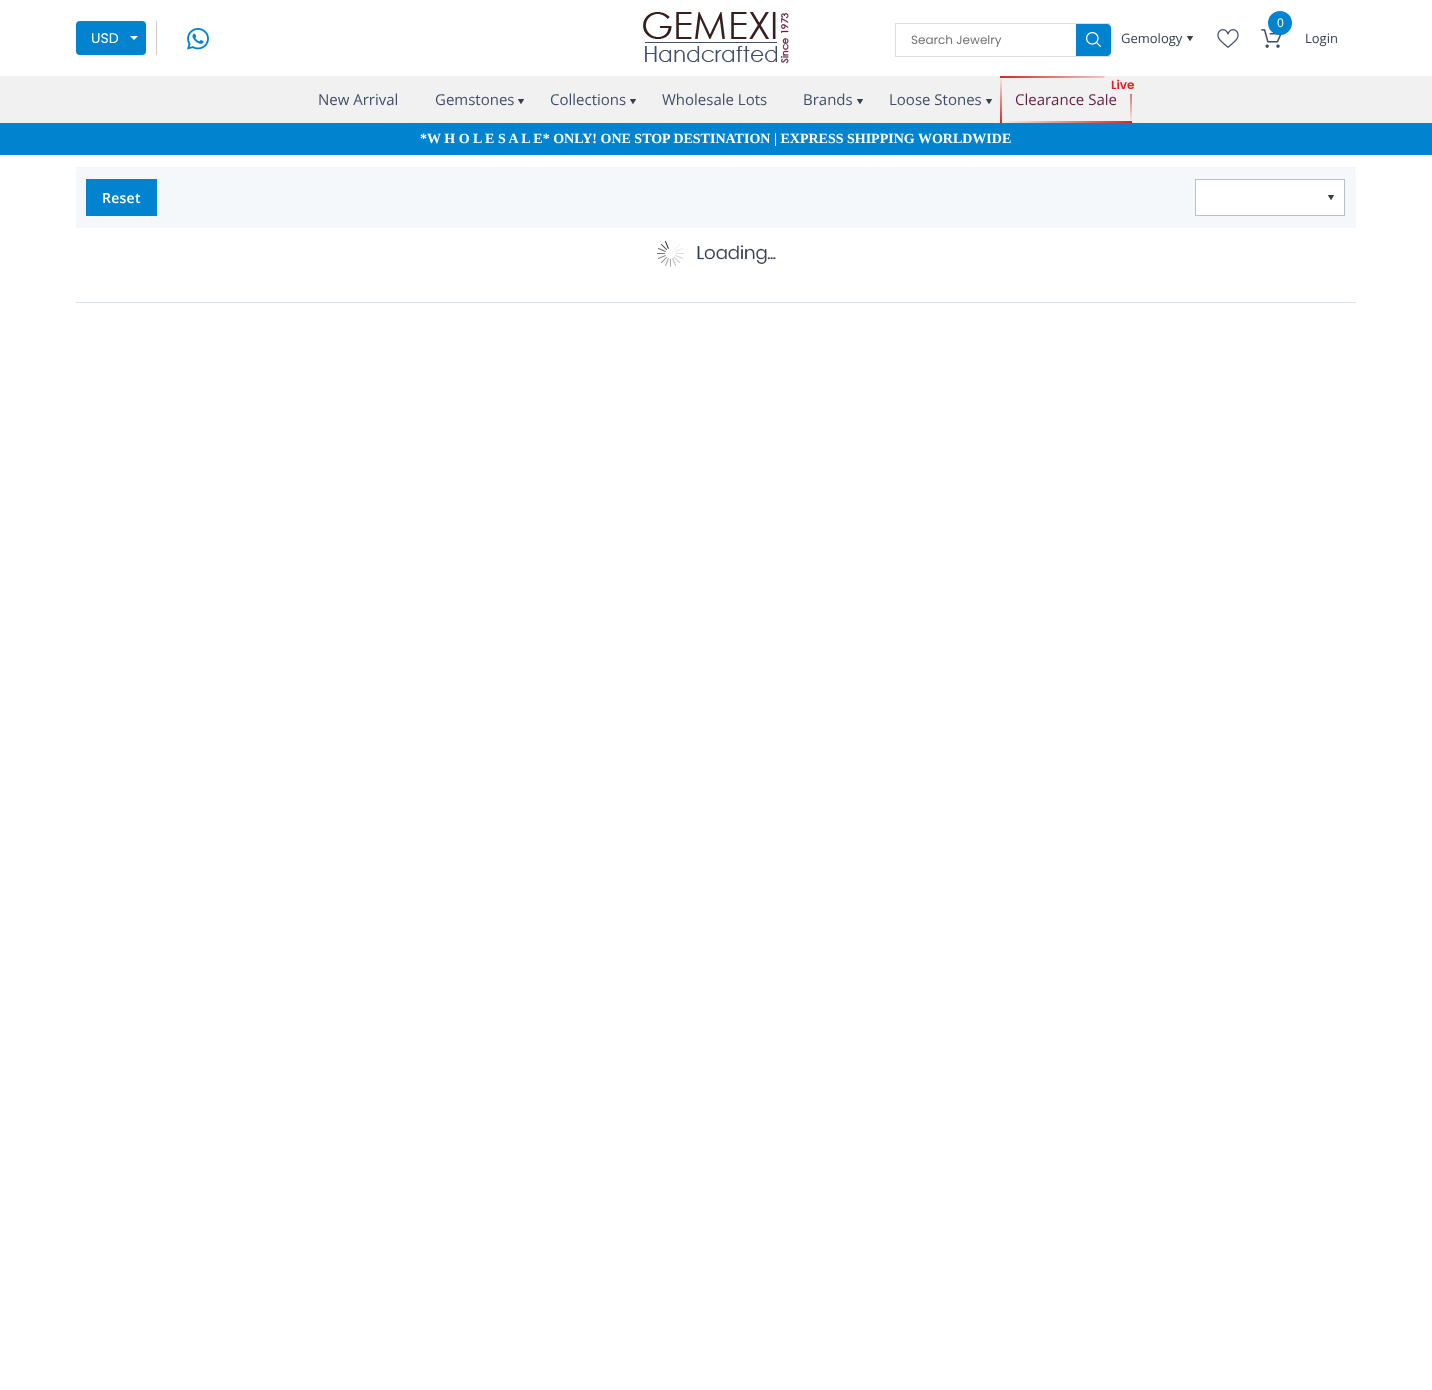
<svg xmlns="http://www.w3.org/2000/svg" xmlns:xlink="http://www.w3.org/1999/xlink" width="1432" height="1390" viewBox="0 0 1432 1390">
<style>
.cls-1{font:14px Poppins;fill:#ffffff}
.cls-2{font:12px Poppins;fill:#757575}
.cls-3{font:12px Open Sans;fill:#ffffff}
.cls-4{font:13px Open Sans;fill:#35404e}
.cls-5{font:15px Open Sans;fill:#404e68}
.cls-6{font:15px Open Sans;fill:#642346}
.cls-7{font:600 12px Poppins;fill:#ec1b22}
.cls-8{font:bold 14px Liberation Serif;fill:#ffffff}
.cls-9{font:600 14px Open Sans;letter-spacing:0.25px;fill:#ffffff}
</style>
<defs>
<linearGradient id="g1" gradientUnits="userSpaceOnUse" x1="1132" y1="77" x2="1000" y2="77"><stop offset="0" stop-color="#f1f1f1"/><stop offset="1" stop-color="#d92626"/></linearGradient>
<linearGradient id="g2" gradientUnits="userSpaceOnUse" x1="1131" y1="123" x2="1131" y2="76"><stop offset="0" stop-color="#f1f1f1"/><stop offset="1" stop-color="#d92626"/></linearGradient>
<linearGradient id="g3" gradientUnits="userSpaceOnUse" x1="1000" y1="122" x2="1132" y2="122"><stop offset="0" stop-color="#d92626" stop-opacity="0"/><stop offset="1" stop-color="#d92626"/></linearGradient>
<linearGradient id="g4" gradientUnits="userSpaceOnUse" x1="1001" y1="76" x2="1001" y2="123"><stop offset="0" stop-color="#d92626" stop-opacity="0"/><stop offset="1" stop-color="#d92626"/></linearGradient>
</defs>
<rect width="100%" height="100%" fill="#ffffff"/>
<rect fill="#cccccc" x="156" y="21" width="1" height="34"/>
<rect fill="#0183cf" x="76" y="21" width="70" height="34" rx="4"/>
<path fill="#ffffff" d="M130 36H138L134 40Z"/>
<image xlink:href="image0.png" x="187" y="28" width="22" height="22"/>
<image xlink:href="image1.png" x="643" y="12" width="146" height="52"/>
<rect fill="none" stroke="#dcdddc" x="895.5" y="23.5" width="214" height="33"/>
<path fill="#0183cf" d="M1076 24H1107C1109 24 1111 26 1111 28V52C1111 54 1109 56 1107 56H1076Z"/>
<image xlink:href="image2.png" x="1086" y="32" width="15" height="15"/>
<image xlink:href="image3.png" x="1261" y="29" width="21" height="19"/>
<circle fill="#0183cf" cx="1280" cy="23" r="12"/>
<image xlink:href="image4.png" x="1187" y="36" width="6" height="5"/>
<image xlink:href="image5.png" x="1217" y="29" width="22" height="19"/>
<rect fill="#f1f1f1" x="0" y="76" width="1432" height="47"/>
<image xlink:href="image6.png" x="518" y="99" width="6" height="5"/>
<image xlink:href="image6.png" x="630" y="99" width="6" height="5"/>
<image xlink:href="image6.png" x="857" y="99" width="6" height="5"/>
<image xlink:href="image6.png" x="986" y="99" width="6" height="5"/>
<rect fill="url(#g1)" x="1000" y="76" width="106" height="2"/>
<rect fill="url(#g2)" x="1130" y="94" width="2" height="29"/>
<rect fill="url(#g3)" x="1000" y="121" width="132" height="2"/>
<rect fill="url(#g4)" x="1000" y="76" width="2" height="47"/>
<rect fill="#0183cf" x="0" y="123" width="1432" height="32"/>
<rect fill="#dbe4e8" x="76" y="302" width="1280" height="1"/>
<rect fill="#f4f8fa" x="76" y="167" width="1280" height="61"/>
<rect fill="#0183cf" x="86" y="179" width="71" height="37"/>
<rect fill="#ffffff" x="1196" y="180" width="148" height="35"/>
<image xlink:href="image4.png" x="1328" y="195" width="6" height="5"/>
<rect fill="none" stroke="#b9c0ca" x="1195.5" y="179.5" width="149" height="36"/>
<image xlink:href="image7.png" x="657" y="241" width="119" height="26"/>
<text class="cls-1" x="91" y="43">USD</text>
<text class="cls-2" x="911" y="44">Search Jewelry</text>
<text class="cls-3" x="1277" y="27">0</text>
<text class="cls-4" x="1121" y="43">Gemology</text>
<text class="cls-4" x="1305" y="43">Login</text>
<text class="cls-5" x="318" y="105">New Arrival</text>
<text class="cls-5" x="435" y="105">Gemstones</text>
<text class="cls-5" x="550" y="105">Collections</text>
<text class="cls-5" x="662" y="105">Wholesale Lots</text>
<text class="cls-5" x="803" y="105">Brands</text>
<text class="cls-5" x="889" y="105">Loose Stones</text>
<text class="cls-6" x="1015" y="105">Clearance Sale</text>
<rect fill="#f1f1f1" x="1104" y="76" width="38" height="18" rx="2"/>
<text class="cls-7" x="1111" y="89">Live</text>
<text class="cls-8" x="420" y="143">*W H O L E S A L E* ONLY! ONE STOP DESTINATION | EXPRESS SHIPPING WORLDWIDE</text>
<text class="cls-9" x="102" y="203">Reset</text>
</svg>
